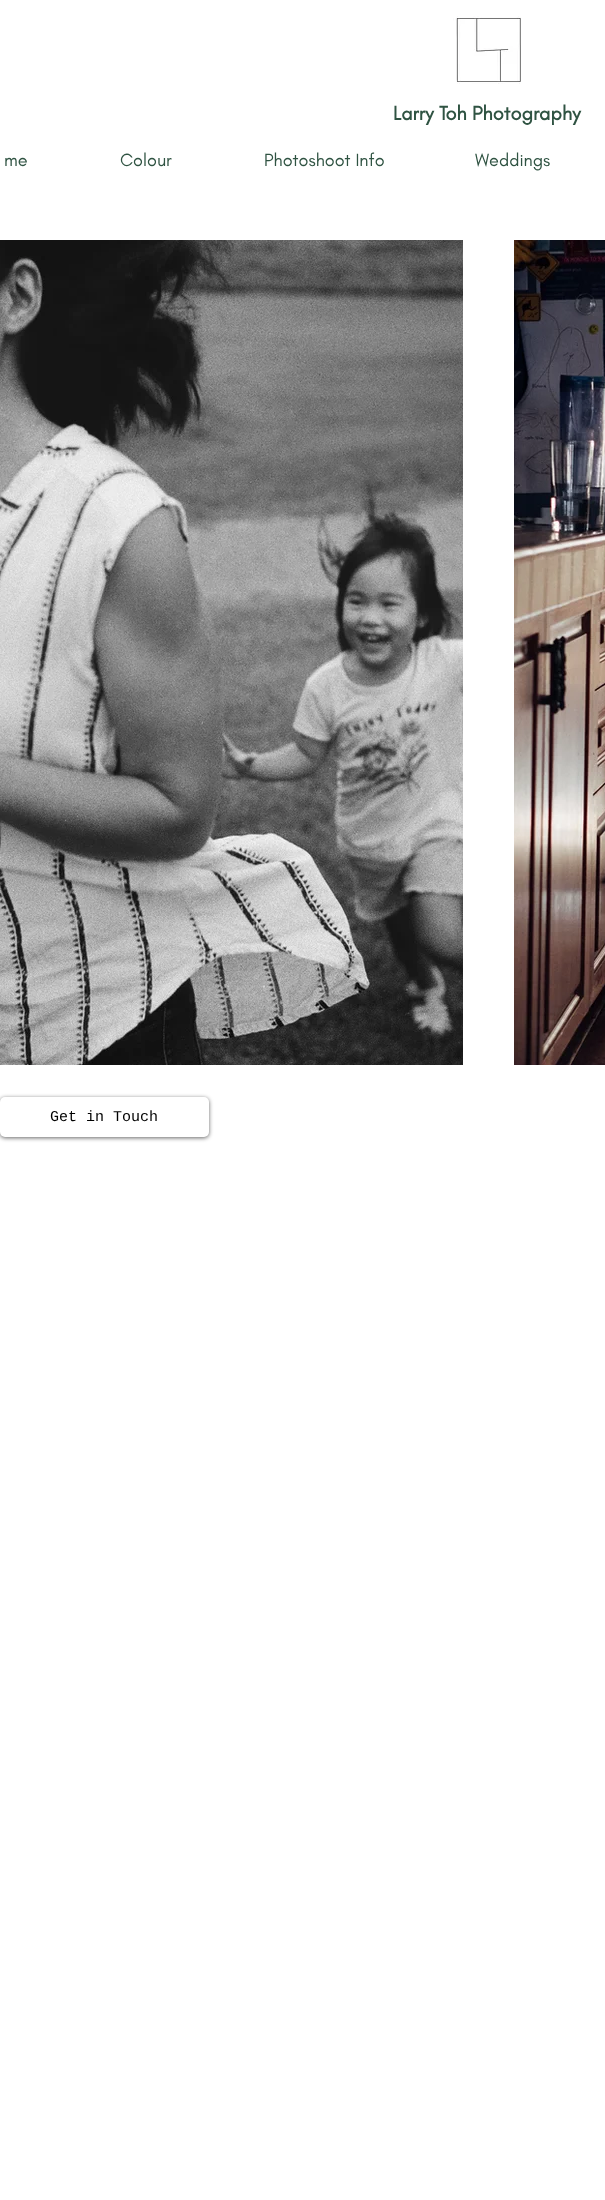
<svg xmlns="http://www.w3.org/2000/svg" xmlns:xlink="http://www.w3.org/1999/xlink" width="605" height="2200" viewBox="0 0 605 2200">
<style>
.cls-1{font:bold 20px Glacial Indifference;fill:#2f5342}
.cls-2{font:18px Glacial Indifference;fill:#2f5342}
.cls-3{font:15px Liberation Mono;fill:#000000}
</style>
<rect width="100%" height="100%" fill="#ffffff"/>
<image xlink:href="image0.png" x="453" y="16" width="68" height="68"/>
<image xlink:href="image1.png" x="0" y="240" width="463" height="825"/>
<image xlink:href="image2.png" x="514" y="240" width="91" height="825"/>
<rect fill="#000000" fill-opacity="0.6" filter="blur(2px)" x="0" y="1098" width="209" height="40" rx="5"/>
<rect fill="#ffffff" x="0" y="1097" width="209" height="40" rx="5"/>
<text class="cls-1" x="393" y="120">Larry Toh Photography</text>
<text class="cls-2" x="4" y="166">me</text>
<text class="cls-2" x="120" y="166">Colour</text>
<text class="cls-2" x="264" y="166">Photoshoot Info</text>
<text class="cls-2" x="475" y="166">Weddings</text>
<text class="cls-3" x="50" y="1121">Get in Touch</text>
</svg>
